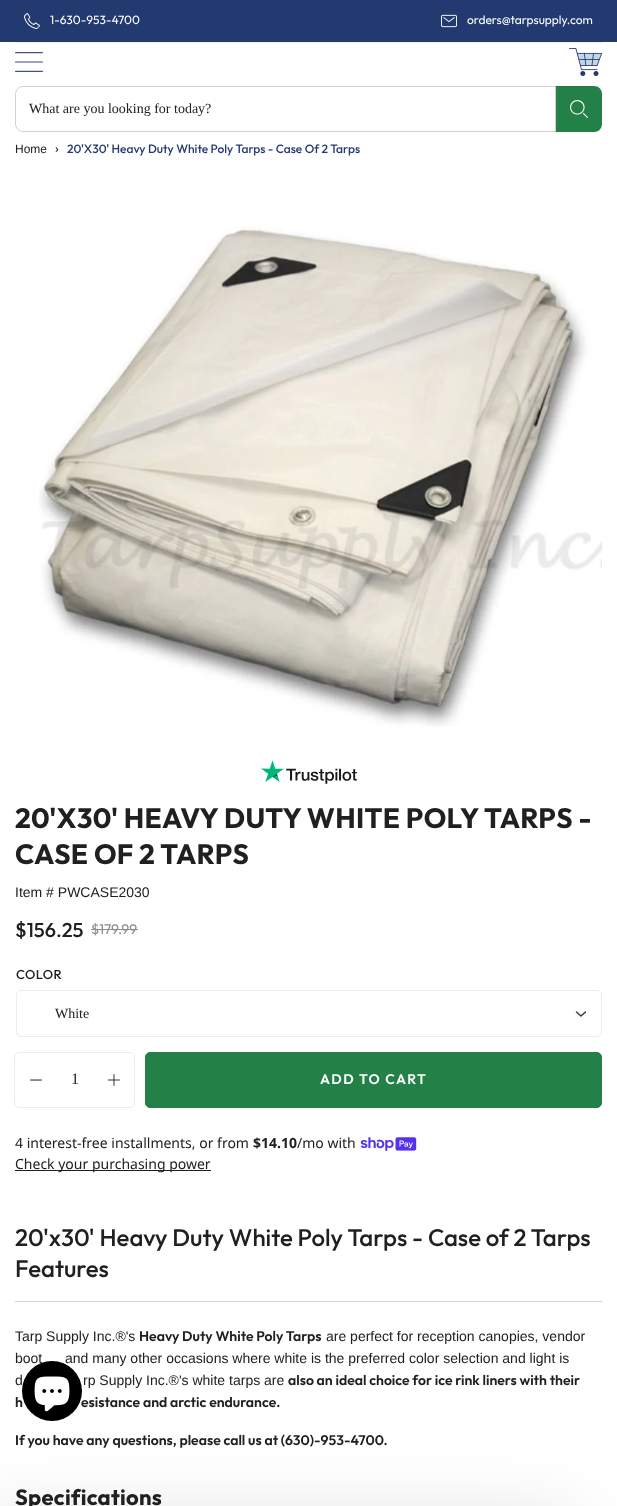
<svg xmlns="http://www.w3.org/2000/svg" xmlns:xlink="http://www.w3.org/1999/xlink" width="617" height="1506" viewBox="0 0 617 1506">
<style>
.cls-1{font:12px Outfit;fill:#ffffff}
.cls-2{font:14px Liberation Serif;fill:#202020}
.cls-3{font:12px Liberation Sans;fill:#202020}
.cls-4{font:14px Outfit;fill:#202020}
.cls-5{font:500 12px Outfit;fill:#233a70}
.cls-6{font:bold 28px Outfit;letter-spacing:0.3px;fill:#202020}
.cls-7{font:14px Liberation Sans;fill:#202020}
.cls-8{font:500 20px Outfit;fill:#202020}
.cls-9{font:14px Outfit;fill:#8e8e8e}
.cls-10{font:500 13px Outfit;letter-spacing:0.5px;fill:#202020}
.cls-11{font:16px Liberation Serif;fill:#202020}
.cls-12{font:600 14px Outfit;letter-spacing:1.4px;fill:#ffffff}
.cls-13{font:14px Noto Sans;fill:#202020}
.cls-14{font:bold 14px Noto Sans;fill:#202020}
.cls-15{font:500 24px Outfit;fill:#202020}
.cls-16{font:600 14px Outfit;fill:#202020}
.cls-17{font:bold 22px Outfit;letter-spacing:0.25px;fill:#202020}
</style>
<rect width="100%" height="100%" fill="#ffffff"/>
<rect fill="#233a70" x="0" y="0" width="617" height="42"/>
<image xlink:href="image0.png" x="23" y="13" width="17" height="16"/>
<image xlink:href="image1.png" x="441" y="14" width="16" height="14"/>
<rect fill="#ececec" x="15" y="42" width="587" height="1"/>
<image xlink:href="image2.png" x="15" y="52" width="28" height="20"/>
<image xlink:href="image3.png" x="569" y="48" width="33" height="28"/>
<path fill="#238046" d="M555 86H594C598.5 86 602 89.5 602 94V124C602 128.5 598.5 132 594 132H555Z"/>
<path fill="none" stroke="#d2d2d2" d="M23 86.5H555.5V131.5H23C19 131.5 15.5 128 15.5 124V94C15.5 90 19 86.5 23 86.5Z"/>
<image xlink:href="image4.png" x="570" y="100" width="18" height="18"/>
<image xlink:href="image5.png" x="38" y="226" width="564" height="501"/>
<image xlink:href="image6.png" x="261" y="760" width="96" height="24"/>
<rect fill="#8e8e8e" x="91" y="929" width="47" height="1"/>
<path fill="none" stroke="#343a40" stroke-width="1.5" stroke-linecap="round" stroke-linejoin="round" d="M576.5 1012L581 1016L585.5 1012"/>
<rect fill="none" stroke="#ececec" x="16.5" y="990.5" width="585" height="46" rx="4.5"/>
<rect fill="none" stroke="#ececec" x="14.5" y="1052.5" width="120" height="55" rx="4.5"/>
<image xlink:href="image7.png" x="30" y="1079" width="12" height="2"/>
<image xlink:href="image8.png" x="108" y="1074" width="12" height="12"/>
<rect fill="#238046" stroke="#238046" x="145.5" y="1052.5" width="456" height="55" rx="4.5"/>
<image xlink:href="image9.png" x="360" y="1137" width="57" height="14"/>
<rect fill="#202020" x="15" y="1170" width="196" height="1"/>
<rect fill="#d2d2d2" x="15" y="1301" width="587" height="1"/>
<rect fill="#000000" fill-opacity="0.25" filter="blur(40px)" x="-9" y="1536" width="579" height="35"/>
<text class="cls-1" x="50" y="24">1-630-953-4700</text>
<text class="cls-1" x="467" y="24">orders@tarpsupply.com</text>
<text class="cls-2" x="29" y="113">What are you looking for today?</text>
<text class="cls-3" x="15" y="153">Home</text>
<text class="cls-4" x="55" y="153">›</text>
<text class="cls-5" x="67" y="153">20'X30' Heavy Duty White Poly Tarps - Case Of 2 Tarps</text>
<text class="cls-6"><tspan x="15" y="828">20'X30' HEAVY DUTY WHITE POLY TARPS -</tspan><tspan x="15" y="864">CASE OF 2 TARPS</tspan></text>
<text class="cls-7" x="15" y="897">Item # PWCASE2030</text>
<text class="cls-8" x="15" y="937">$156.25</text>
<text class="cls-9" x="91" y="934">$179.99</text>
<text class="cls-10" x="16" y="979">COLOR</text>
<text class="cls-2" x="55" y="1018">White</text>
<text class="cls-11" x="71" y="1084">1</text>
<text class="cls-12" x="320" y="1084">ADD TO CART</text>
<text class="cls-13" x="15" y="1148">4 interest-free installments, or from</text>
<text class="cls-14" x="253" y="1148">$14.10</text>
<text class="cls-13" x="297" y="1148">/mo with</text>
<text class="cls-13" x="15" y="1169">Check your purchasing power</text>
<text class="cls-15"><tspan x="15" y="1246">20'x30' Heavy Duty White Poly Tarps - Case of 2 Tarps</tspan><tspan x="15" y="1277">Features</tspan></text>
<text class="cls-7" x="15" y="1341">Tarp Supply Inc.®'s</text>
<text class="cls-16" x="139" y="1341">Heavy Duty White Poly Tarps</text>
<text class="cls-7" x="326" y="1341">are perfect for reception canopies, vendor</text>
<text class="cls-7" x="15" y="1363">boot</text>
<text class="cls-7" x="65" y="1363">and many other occasions where white is the preferred color selection and light is</text>
<text class="cls-7" x="15" y="1385">d</text>
<text class="cls-7" x="83" y="1385">rp Supply Inc.®'s white tarps are</text>
<text class="cls-16" x="288" y="1385">also an ideal choice for ice rink liners with their</text>
<text class="cls-16" x="15" y="1407">h</text>
<text class="cls-16" x="81" y="1407">esistance and arctic endurance.</text>
<text class="cls-16" x="15" y="1445">If you have any questions, please call us at (630)-953-4700.</text>
<text class="cls-17" x="15" y="1505">Specifications</text>
<circle fill="#000000" cx="52" cy="1391" r="30"/>
<image xlink:href="image10.png" x="34" y="1376" width="36" height="36"/>
</svg>
